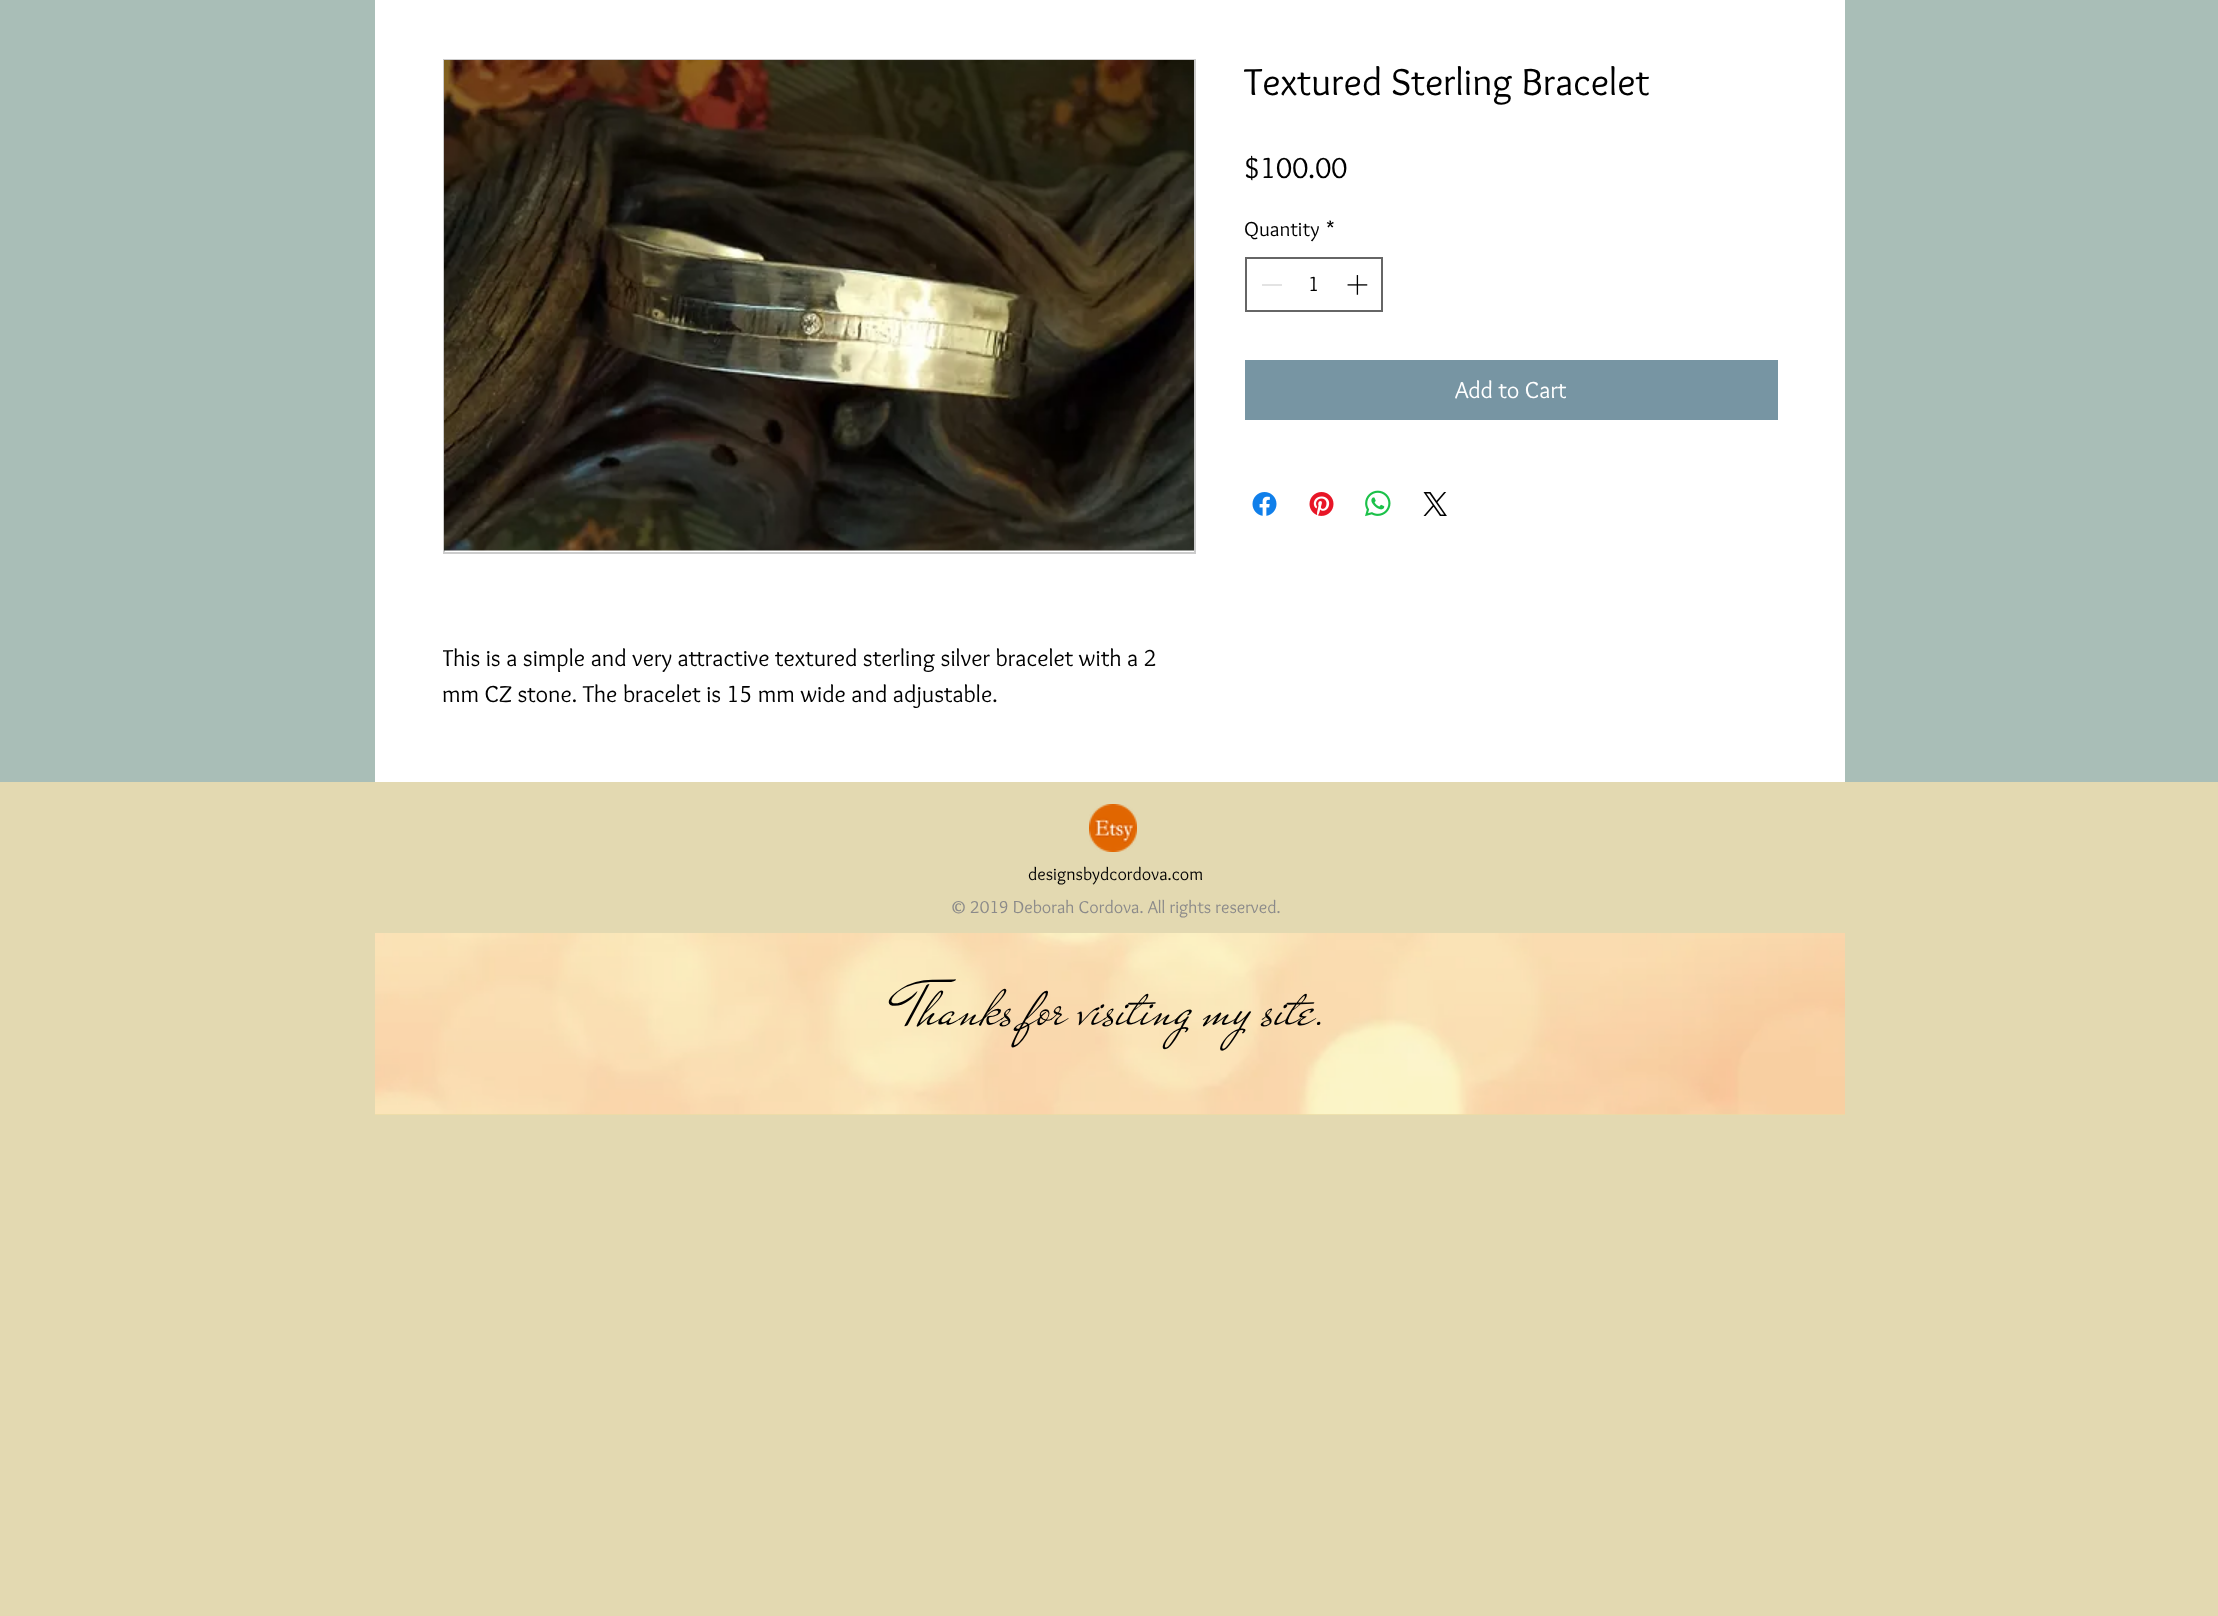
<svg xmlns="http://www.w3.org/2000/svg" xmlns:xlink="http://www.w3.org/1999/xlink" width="2218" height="1616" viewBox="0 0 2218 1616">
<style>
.cls-1{font:39px Overlock;fill:#000000}
.cls-2{font:30px Overlock;fill:#000000}
.cls-3{font:21px Overlock;fill:#000000}
.cls-4{font:24px Overlock;fill:#ffffff}
.cls-5{font:24px Overlock;fill:#000000}
.cls-6{font:18px Overlock;fill:#000000}
.cls-7{font:18px Overlock;fill:#8b8a8a}
.cls-8{font:64.5px Mr De Haviland;fill:#000000}
</style>
<defs>
<clipPath id="clip1"><rect x="443" y="641" width="750" height="72"/></clipPath>
</defs>
<rect width="100%" height="100%" fill="#a9beb7"/>
<rect fill="#ffffff" x="375" y="0" width="1470" height="782"/>
<rect fill="none" stroke="#666666" stroke-width="2" x="1246" y="258" width="136" height="53"/>
<rect fill="#e3e3e3" x="1262" y="284" width="20" height="2"/>
<image xlink:href="image0.png" x="1347" y="275" width="21" height="20"/>
<rect fill="#7795a3" x="1245" y="360" width="533" height="60"/>
<image xlink:href="image1.png" x="1252" y="492" width="25" height="24"/>
<image xlink:href="image2.png" x="1309" y="492" width="25" height="24"/>
<image xlink:href="image3.png" x="1365" y="490" width="26" height="27"/>
<image xlink:href="image4.png" x="1423" y="492" width="24" height="24"/>
<rect fill="none" stroke="#cccccc" stroke-width="2" x="444" y="60" width="751" height="493"/>
<image xlink:href="image5.png" x="444" y="60" width="750" height="491"/>
<rect fill="#e3d9b1" x="0" y="782" width="2218" height="834"/>
<rect fill="#eadba5" x="375" y="1114" width="1470" height="1"/>
<image xlink:href="image6.png" x="1089" y="804" width="48" height="48"/>
<image xlink:href="image7.png" x="375" y="933" width="1470" height="182"/>
<text class="cls-1" x="1244" y="95">Textured Sterling Bracelet</text>
<text class="cls-2" x="1244" y="178">$100.00</text>
<text class="cls-3" x="1244" y="236">Quantity</text>
<text class="cls-3" x="1326" y="236">*</text>
<text class="cls-3" x="1308" y="291">1</text>
<text class="cls-4" x="1455" y="398">Add to Cart</text>
<g clip-path="url(#clip1)">
<text class="cls-5" x="442" y="666">This is a simple and very attractive textured sterling silver bracelet with a 2</text>
</g>
<text class="cls-5" x="442" y="702">mm CZ stone. The bracelet is 15 mm wide and adjustable.</text>
<text class="cls-6" x="1028" y="880">designsbydcordova.com</text>
<text class="cls-7" x="950" y="913">© 2019 Deborah Cordova. All rights reserved.</text>
<text class="cls-8" x="902" y="1024">Thanks for visiting my site.</text>
</svg>
